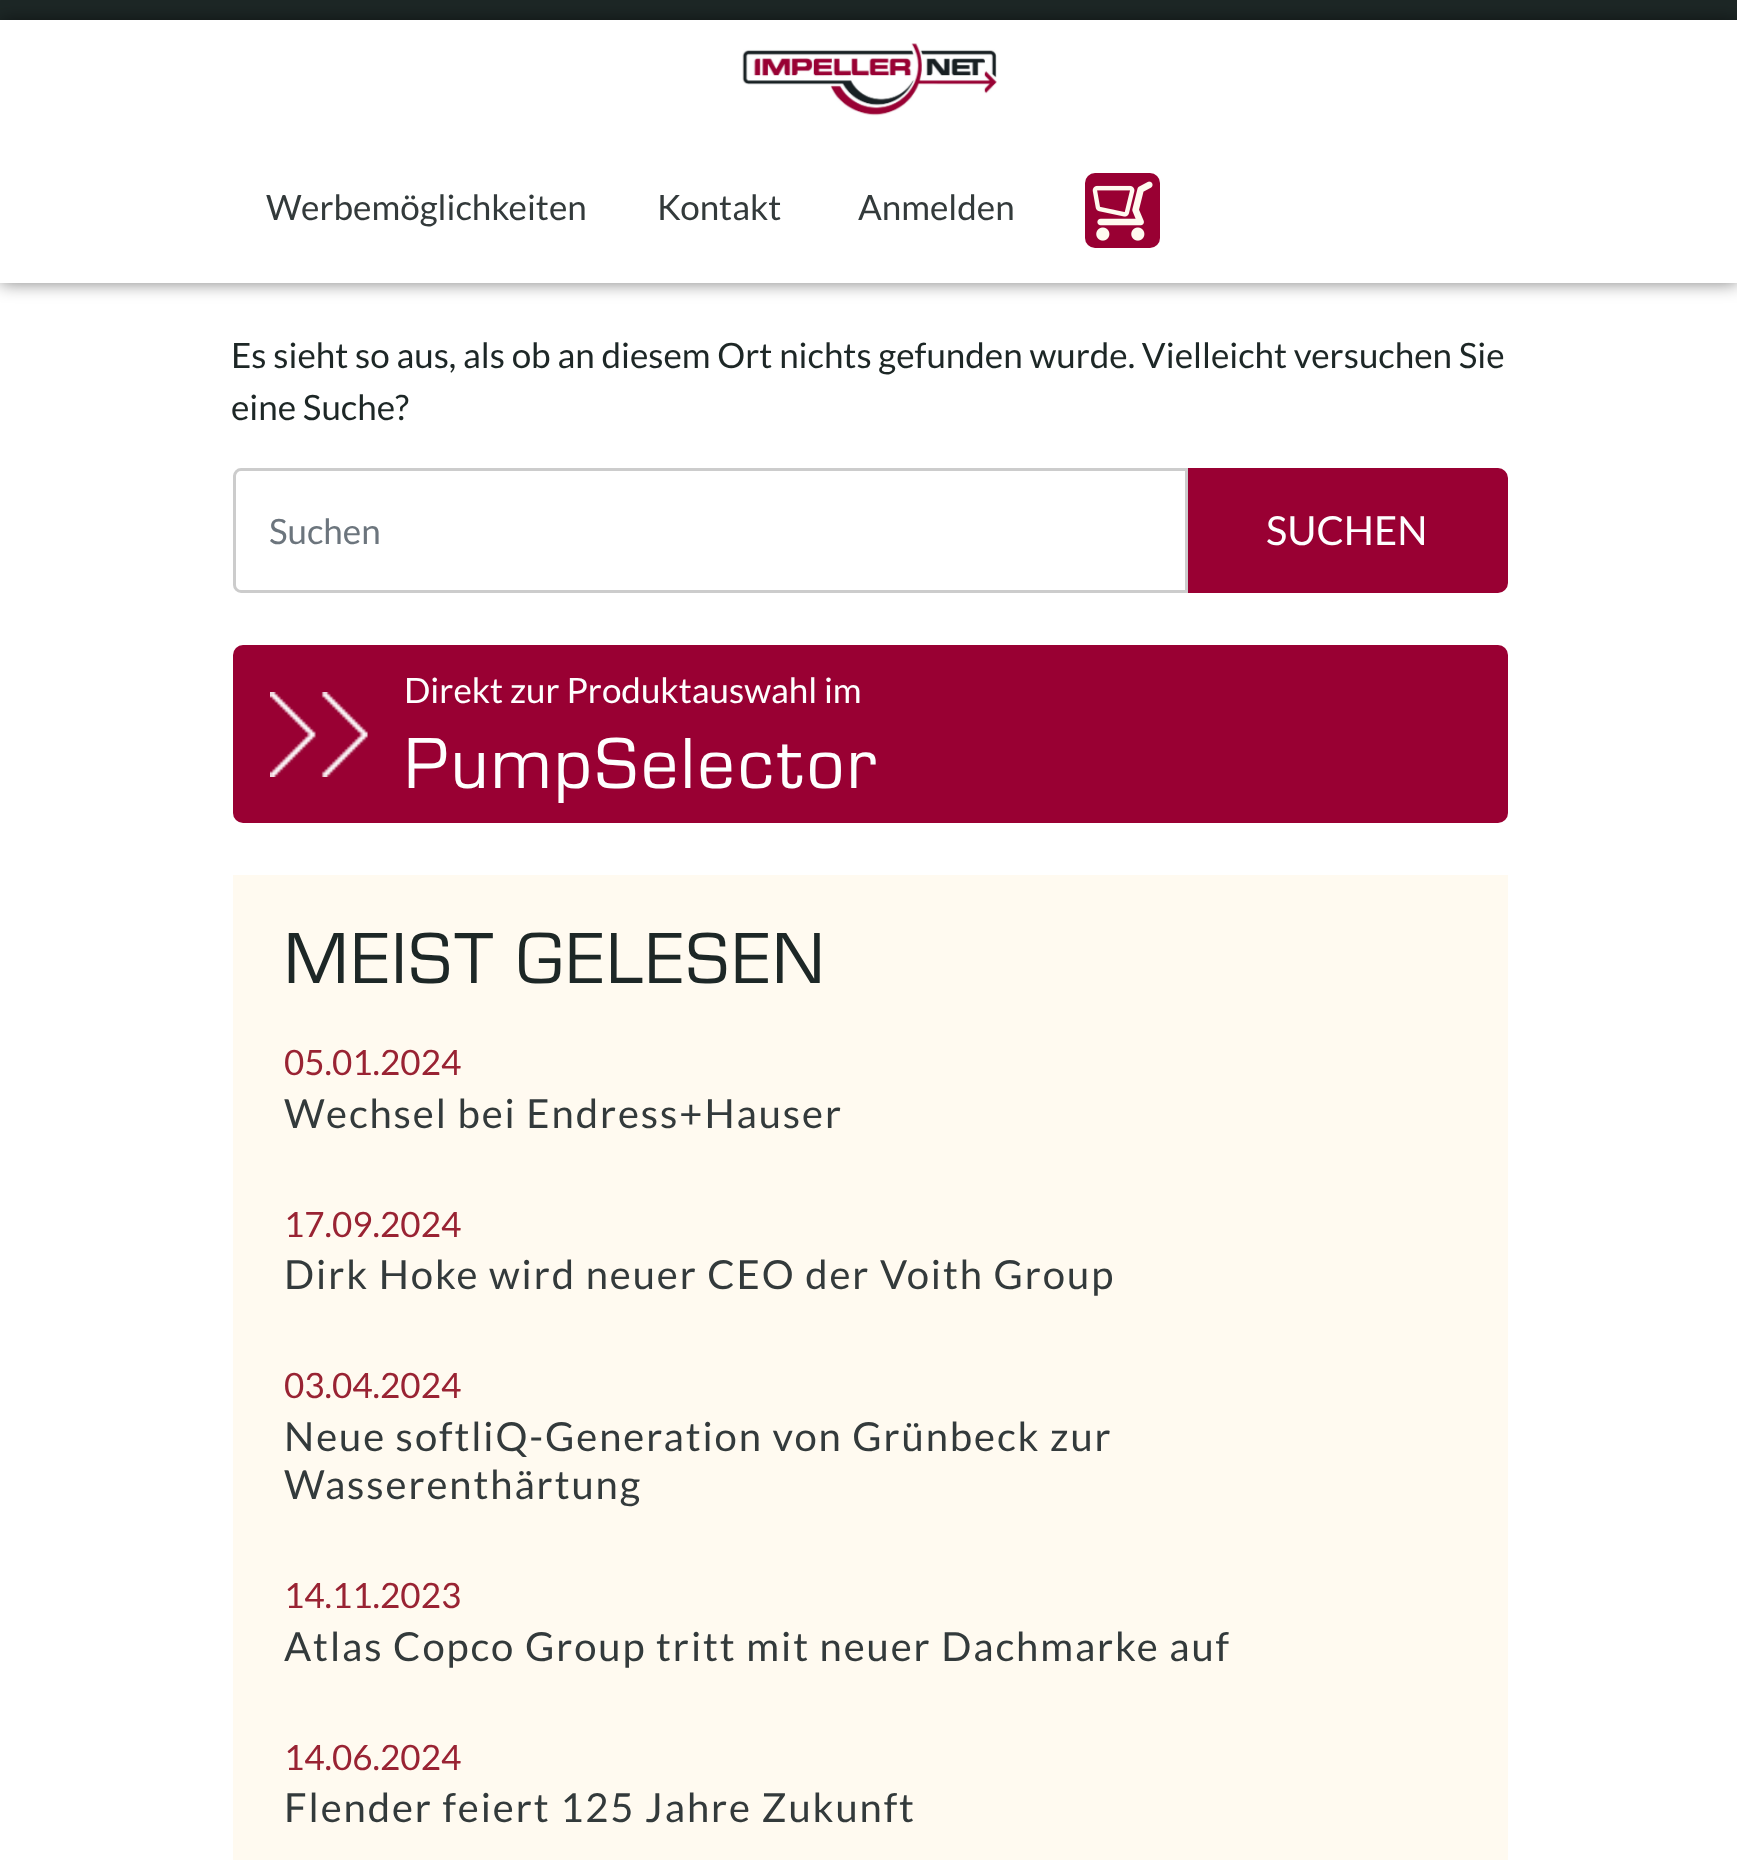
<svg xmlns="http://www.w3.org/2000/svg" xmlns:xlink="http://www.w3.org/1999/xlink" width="1737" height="1860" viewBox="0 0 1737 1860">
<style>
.cls-1{font:35px Lato;fill:#333a3b}
.cls-2{font:35px Lato;fill:#1d2726}
.cls-3{font:35px Lato;fill:#6c757d}
.cls-4{font:40px Lato;fill:#fefefe}
.cls-5{font:35px Lato;fill:#fefefe}
.cls-6{font:75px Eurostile;letter-spacing:2.5px;fill:#fefefe}
.cls-7{font:75px Eurostile;letter-spacing:1.9px;fill:#1d2726}
.cls-8{font:35px Lato;fill:#992333}
.cls-9{font:40px Lato;letter-spacing:1.9px;fill:#333a3b}
</style>
<rect width="100%" height="100%" fill="#ffffff"/>
<rect fill="#1d2726" x="0" y="0" width="1737" height="20"/>
<rect fill="#000000" fill-opacity="0.5" filter="blur(9px)" x="0" y="20" width="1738" height="263"/>
<rect fill="#ffffff" x="0" y="20" width="1737" height="263"/>
<image xlink:href="image0.png" x="742" y="43" width="255" height="73"/>
<rect fill="#990033" x="1085" y="173" width="75" height="75" rx="10"/>
<image xlink:href="image1.png" x="1092" y="181" width="61" height="60"/>
<path fill="none" stroke="#cccccc" stroke-width="3" d="M241 469.5H1186.5V591.5H241C237.5 591.5 234.5 588.5 234.5 585V476C234.5 472.5 237.5 469.5 241 469.5Z"/>
<path fill="#990033" stroke="#990033" stroke-width="3" d="M1189.5 469.5H1498C1502.5 469.5 1506.5 473.5 1506.5 478V583C1506.5 587.5 1502.5 591.5 1498 591.5H1189.5Z"/>
<rect fill="#990033" x="233" y="645" width="1275" height="178" rx="10"/>
<image xlink:href="image2.png" x="270" y="692" width="98" height="85"/>
<rect fill="#fffaf0" x="233" y="875" width="1275" height="985"/>
<text class="cls-1" x="266" y="220">Werbemöglichkeiten</text>
<text class="cls-1" x="657" y="220">Kontakt</text>
<text class="cls-1" x="858" y="220">Anmelden</text>
<text class="cls-2"><tspan x="231" y="368">Es sieht so aus, als ob an diesem Ort nichts gefunden wurde. Vielleicht versuchen Sie</tspan><tspan x="231" y="420">eine Suche?</tspan></text>
<text class="cls-3" x="269" y="544">Suchen</text>
<text class="cls-4" x="1266" y="545">SUCHEN</text>
<text class="cls-5" x="404" y="703">Direkt zur Produktauswahl im</text>
<text class="cls-6" x="404" y="788">PumpSelector</text>
<text class="cls-7" x="284" y="983">MEIST GELESEN</text>
<text class="cls-8" x="284" y="1075">05.01.2024</text>
<text class="cls-9" x="284" y="1128">Wechsel bei Endress+Hauser</text>
<text class="cls-8" x="284" y="1237">17.09.2024</text>
<text class="cls-9" x="284" y="1289">Dirk Hoke wird neuer CEO der Voith Group</text>
<text class="cls-8" x="284" y="1398">03.04.2024</text>
<text class="cls-9"><tspan x="284" y="1451">Neue softliQ-Generation von Grünbeck zur</tspan><tspan x="284" y="1499">Wasserenthärtung</tspan></text>
<text class="cls-8" x="284" y="1608">14.11.2023</text>
<text class="cls-9" x="284" y="1661">Atlas Copco Group tritt mit neuer Dachmarke auf</text>
<text class="cls-8" x="284" y="1770">14.06.2024</text>
<text class="cls-9" x="284" y="1822">Flender feiert 125 Jahre Zukunft</text>
</svg>
